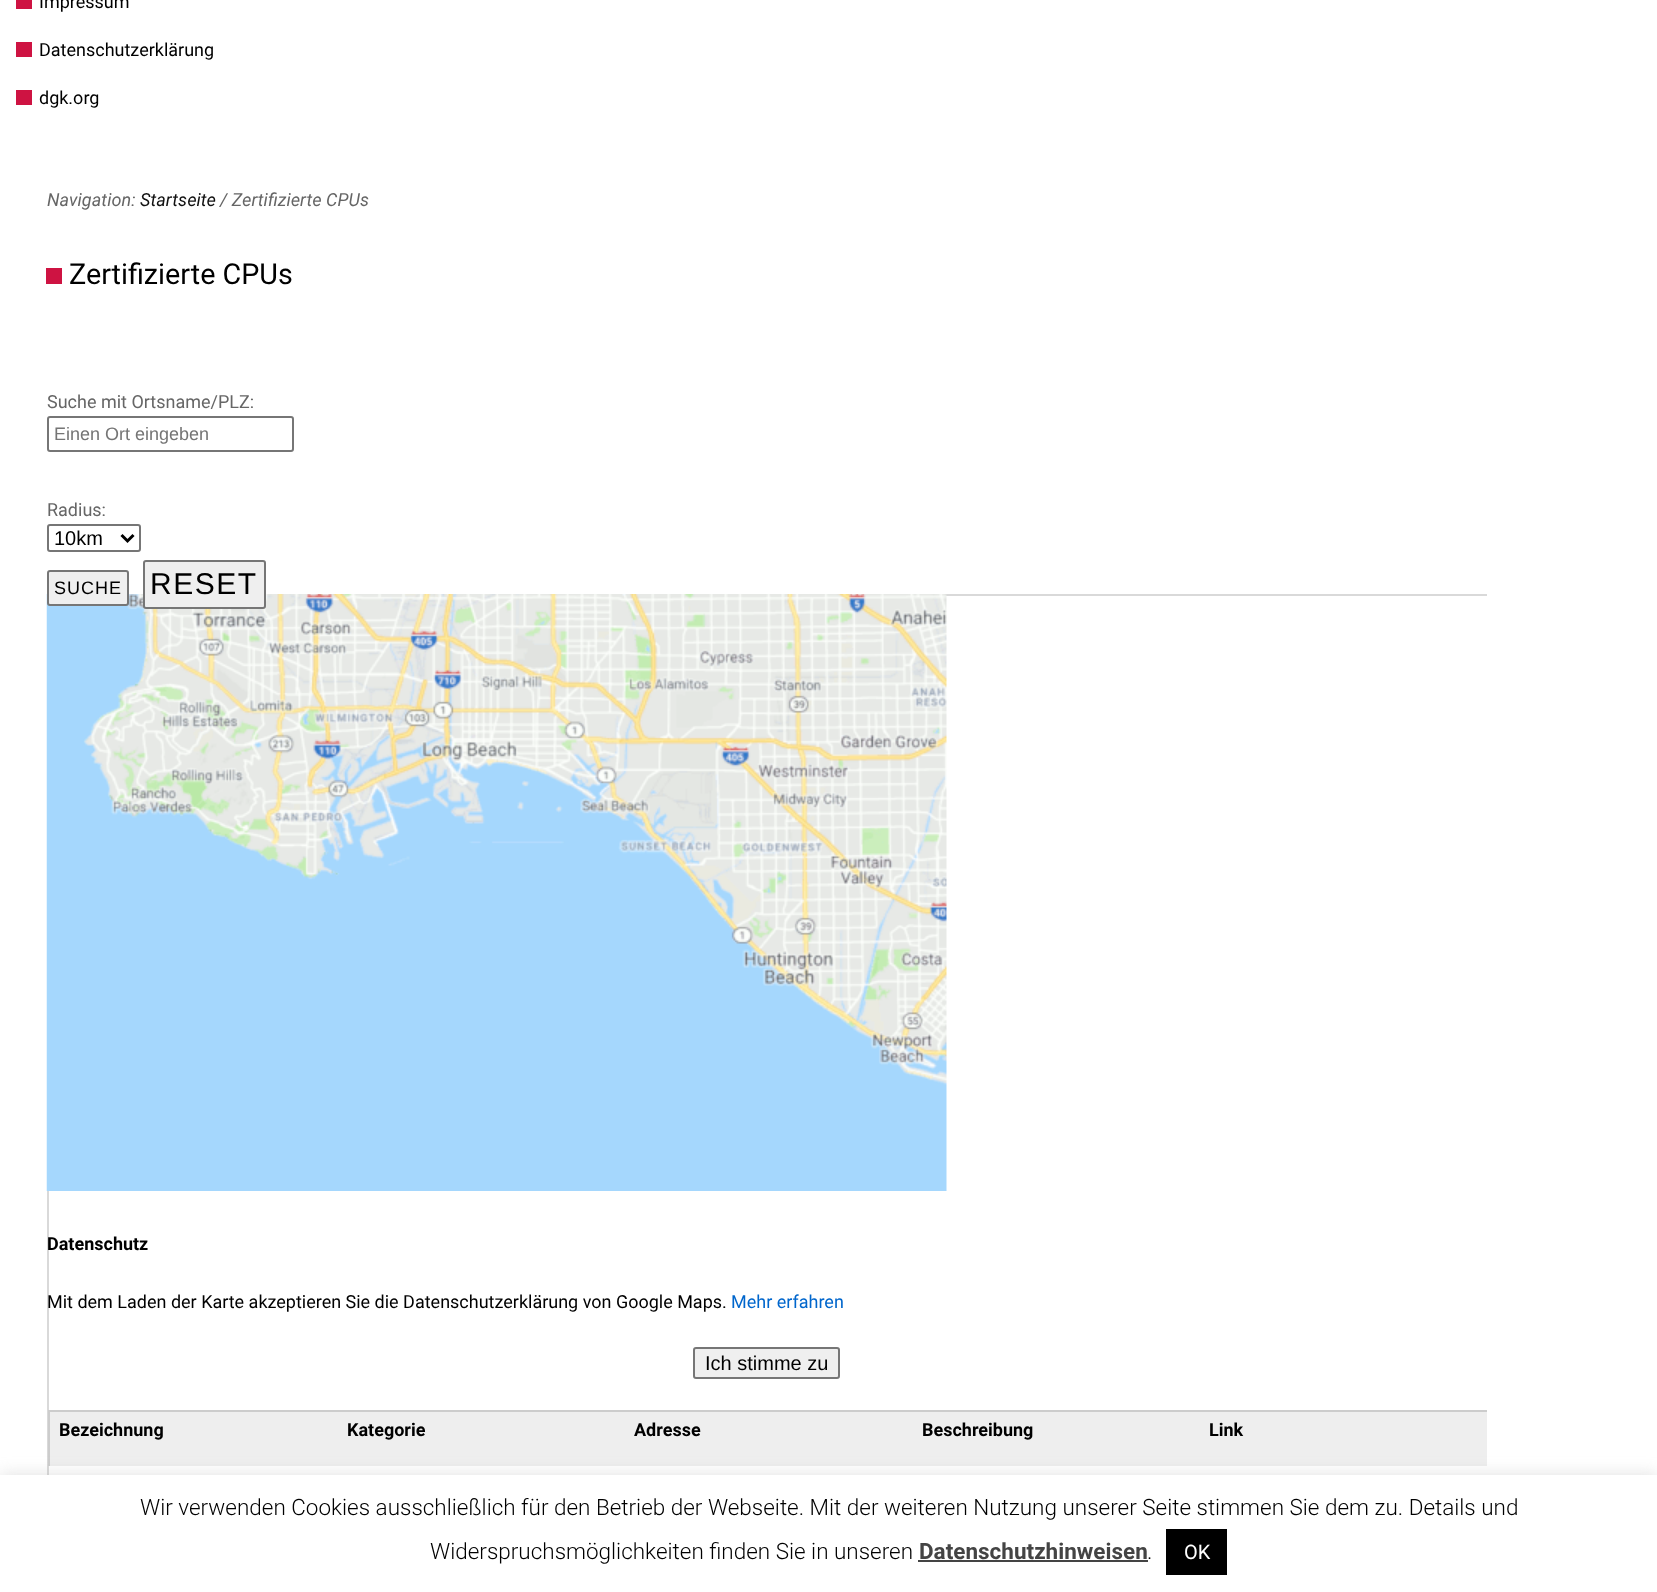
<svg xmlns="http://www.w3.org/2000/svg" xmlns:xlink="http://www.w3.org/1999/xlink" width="1657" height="1592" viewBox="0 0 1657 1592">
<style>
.cls-1{font:18px Roboto;fill:#000000}
.cls-2{font:italic 18px Roboto;fill:#666666}
.cls-3{font:italic 18px Roboto;fill:#111111}
.cls-4{font:28.75px Roboto;fill:#000000}
.cls-5{font:18px Roboto;fill:#666666}
.cls-6{font:18px Liberation Sans;fill:#757575}
.cls-7{font:20px Liberation Sans;fill:#000000}
.cls-8{font:18px Liberation Sans;letter-spacing:1px;fill:#000000}
.cls-9{font:30px Liberation Sans;letter-spacing:1.5px;fill:#000000}
.cls-10{font:bold 18px Roboto;fill:#000000}
.cls-11{font:18px Roboto;fill:#0066cc}
.cls-12{font:300 22.5px Roboto;fill:#000000}
.cls-13{font:bold 22.5px Roboto;fill:#444444}
.cls-14{font:20px Roboto;fill:#ffffff}
</style>
<defs>
<clipPath id="clip1"><rect x="47" y="336" width="1440" height="1163"/></clipPath>
</defs>
<rect width="100%" height="100%" fill="#ffffff"/>
<rect fill="#ce1342" x="16" y="0" width="16" height="9"/>
<rect fill="#ce1342" x="16" y="42" width="16" height="15"/>
<rect fill="#ce1342" x="16" y="90" width="16" height="15"/>
<rect fill="#ce1342" x="46" y="268" width="16" height="16"/>
<rect fill="none" stroke="#767676" stroke-width="2" x="48" y="417" width="245" height="34" rx="2"/>
<rect fill="none" stroke="#767676" stroke-width="2" x="48" y="525" width="92" height="26" rx="2"/>
<path fill="none" stroke="#000000" stroke-width="3" d="M121.5 535L127.5 541L133.5 535"/>
<g clip-path="url(#clip1)">
<rect fill="none" stroke="#d9d9d9" stroke-width="2" x="48" y="595" width="1441" height="903"/>
</g>
<image xlink:href="image0.png" x="46" y="594" width="901" height="597"/>
<rect fill="#efefef" stroke="#767676" stroke-width="2" x="48" y="571" width="80" height="34" rx="2"/>
<rect fill="#efefef" stroke="#767676" stroke-width="2" x="144" y="561" width="121" height="47" rx="2"/>
<rect fill="#efefef" stroke="#767676" stroke-width="2" x="694" y="1348" width="145" height="30" rx="2"/>
<rect fill="#cccccc" x="48" y="1410" width="1439" height="2"/>
<rect fill="#cccccc" x="48" y="1410" width="2" height="56"/>
<rect fill="#eeeeee" x="50" y="1412" width="1437" height="54"/>
<rect fill="#acabab" fill-opacity="0.3" filter="blur(7.5px)" x="0" y="1473" width="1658" height="119"/>
<rect fill="#ffffff" x="0" y="1475" width="1657" height="117"/>
<rect fill="#444444" x="918" y="1560" width="230" height="2"/>
<rect fill="#000000" x="1166" y="1529" width="61" height="46"/>
<text class="cls-1" x="39" y="8">Impressum</text>
<text class="cls-1" x="39" y="56">Datenschutzerklärung</text>
<text class="cls-1" x="39" y="104">dgk.org</text>
<text class="cls-2" x="47" y="206">Navigation:</text>
<text class="cls-3" x="140" y="206">Startseite</text>
<text class="cls-2" x="220" y="206">/ Zertifizierte CPUs</text>
<text class="cls-4" x="69" y="284">Zertifizierte CPUs</text>
<text class="cls-5" x="47" y="408">Suche mit Ortsname/PLZ:</text>
<text class="cls-6" x="54" y="440">Einen Ort eingeben</text>
<text class="cls-5" x="47" y="516">Radius:</text>
<text class="cls-7" x="54" y="545">10km</text>
<text class="cls-8" x="54" y="594">SUCHE</text>
<text class="cls-9" x="150" y="594">RESET</text>
<text class="cls-10" x="47" y="1250">Datenschutz</text>
<text class="cls-1" x="47" y="1308">Mit dem Laden der Karte akzeptieren Sie die Datenschutzerklärung von Google Maps.</text>
<text class="cls-11" x="731" y="1308">Mehr erfahren</text>
<text class="cls-7" x="705" y="1370">Ich stimme zu</text>
<text class="cls-10" x="59" y="1436">Bezeichnung</text>
<text class="cls-10" x="347" y="1436">Kategorie</text>
<text class="cls-10" x="634" y="1436">Adresse</text>
<text class="cls-10" x="922" y="1436">Beschreibung</text>
<text class="cls-10" x="1209" y="1436">Link</text>
<text class="cls-12" x="140" y="1515">Wir verwenden Cookies ausschließlich für den Betrieb der Webseite. Mit der weiteren Nutzung unserer Seite stimmen Sie dem zu. Details und</text>
<text class="cls-12" x="430" y="1559">Widerspruchsmöglichkeiten finden Sie in unseren</text>
<text class="cls-13" x="919" y="1559">Datenschutzhinweisen</text>
<text class="cls-12" x="1147" y="1559">.</text>
<text class="cls-14" x="1184" y="1559">OK</text>
</svg>
